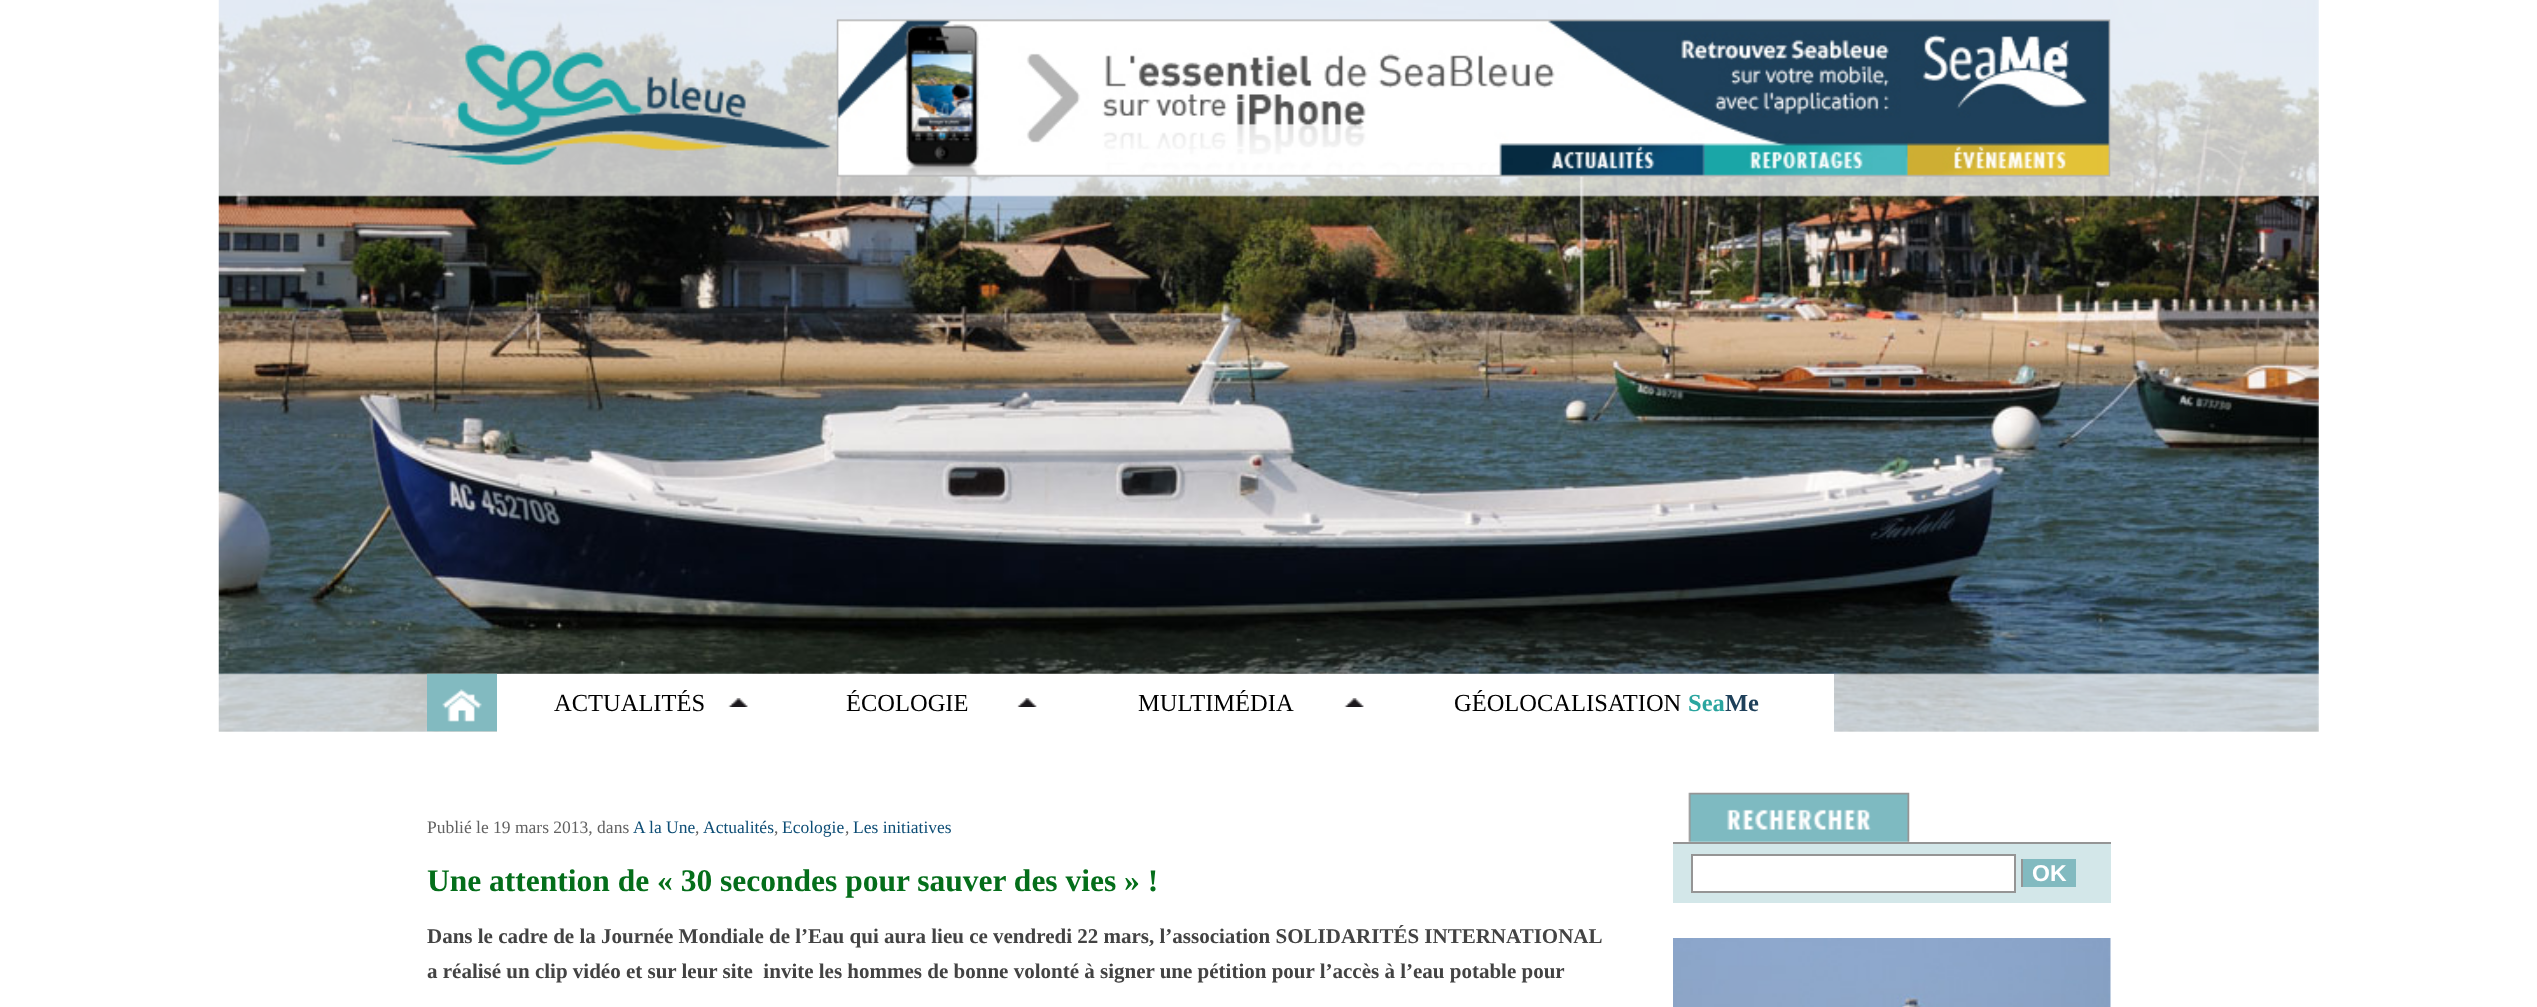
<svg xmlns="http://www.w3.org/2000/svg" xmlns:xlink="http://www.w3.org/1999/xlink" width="2537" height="1007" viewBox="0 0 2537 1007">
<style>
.cls-1{font:24.5px Liberation Serif;fill:#000000}
.cls-2{font:bold 24.5px Liberation Serif;fill:#2aa59f}
.cls-3{font:bold 24.5px Liberation Serif;fill:#1e405a}
.cls-4{font:17.5px Liberation Serif;fill:#626262}
.cls-5{font:17.5px Liberation Serif;fill:#0d4d75}
.cls-6{font:bold 31.5px Liberation Serif;fill:#046e1a}
.cls-7{font:bold 21px Liberation Serif;fill:#434343}
.cls-8{font:bold 23px Liberation Sans;fill:#ffffff}
</style>
<rect width="100%" height="100%" fill="#ffffff"/>
<image xlink:href="image0.png" x="218" y="0" width="2101" height="732"/>
<image xlink:href="image1.png" x="218" y="0" width="2101" height="732"/>
<image xlink:href="image2.png" x="392" y="43" width="439" height="122"/>
<image xlink:href="image3.png" x="836" y="19" width="1275" height="158"/>
<image xlink:href="image4.png" x="427" y="673" width="70" height="59"/>
<rect fill="#ffffff" x="497" y="674" width="1337" height="58"/>
<image xlink:href="image5.png" x="728" y="698" width="20" height="9"/>
<image xlink:href="image6.png" x="1017" y="698" width="20" height="9"/>
<image xlink:href="image5.png" x="1344" y="698" width="20" height="9"/>
<image xlink:href="image7.png" x="1688" y="792" width="222" height="50"/>
<rect fill="#d3e7e9" x="1673" y="844" width="438" height="59"/>
<rect fill="#959595" x="1673" y="842" width="438" height="2"/>
<rect fill="#ffffff" stroke="#959595" stroke-width="2" x="1692" y="855" width="323" height="37"/>
<rect fill="#82bac0" x="2023" y="859" width="53" height="28"/>
<rect fill="#959595" x="2021" y="859" width="2" height="28"/>
<image xlink:href="image8.png" x="1673" y="938" width="438" height="69"/>
<text class="cls-1" x="554" y="711">ACTUALITÉS</text>
<text class="cls-1" x="846" y="711">ÉCOLOGIE</text>
<text class="cls-1" x="1138" y="711">MULTIMÉDIA</text>
<text class="cls-1" x="1454" y="711">GÉOLOCALISATION</text>
<text class="cls-2" x="1688" y="711">Sea</text>
<text class="cls-3" x="1725" y="711">Me</text>
<text class="cls-4" x="427" y="833">Publié le 19 mars 2013, dans</text>
<text class="cls-5" x="633" y="833">A la Une</text>
<text class="cls-4" x="695" y="833">,</text>
<text class="cls-5" x="703" y="833">Actualités</text>
<text class="cls-4" x="774" y="833">,</text>
<text class="cls-5" x="782" y="833">Ecologie</text>
<text class="cls-4" x="845" y="833">,</text>
<text class="cls-5" x="853" y="833">Les initiatives</text>
<text class="cls-6" x="427" y="891">Une attention de « 30 secondes pour sauver des vies » !</text>
<text class="cls-7" xml:space="preserve"><tspan x="427" y="943">Dans le cadre de la Journée Mondiale de l’Eau qui aura lieu ce vendredi 22 mars, l’association SOLIDARITÉS INTERNATIONAL</tspan><tspan x="427" y="978">a réalisé un clip vidéo et sur leur site  invite les hommes de bonne volonté à signer une pétition pour l’accès à l’eau potable pour</tspan></text>
<text class="cls-8" x="2032" y="881">OK</text>
</svg>
